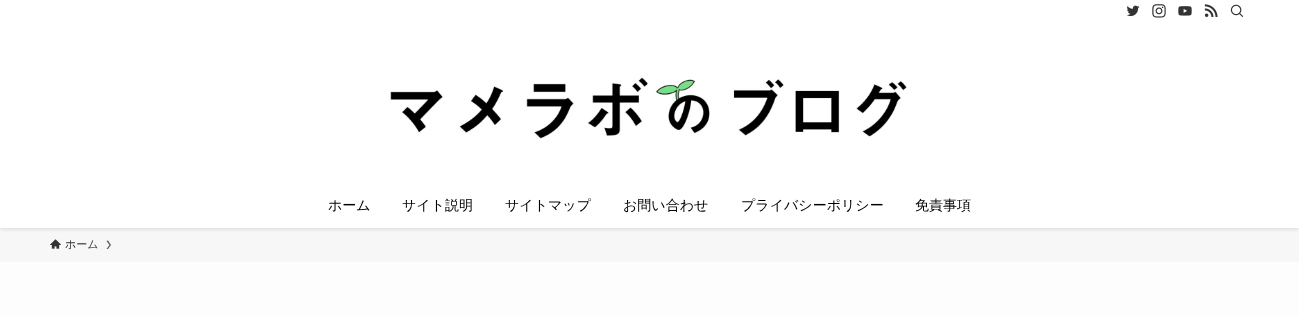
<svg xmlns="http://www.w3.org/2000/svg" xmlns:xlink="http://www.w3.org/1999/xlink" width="1299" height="316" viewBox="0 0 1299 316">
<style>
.cls-1{font:500 14px WenQuanYi Zen Hei;fill:#000000}
.cls-2{font:500 11px WenQuanYi Zen Hei;fill:#333333}
</style>
<rect width="100%" height="100%" fill="#fdfdfd"/>
<rect fill="#f7f7f7" x="0" y="228" width="1299" height="34"/>
<rect fill="#000000" fill-opacity="0.12" filter="blur(2px)" x="0" y="1" width="1299" height="228"/>
<rect fill="#ffffff" x="0" y="0" width="1299" height="228"/>
<image xlink:href="image0.png" x="1126" y="5" width="14" height="12"/>
<image xlink:href="image1.png" x="1152" y="4" width="14" height="14"/>
<image xlink:href="image2.png" x="1178" y="6" width="14" height="10"/>
<image xlink:href="image3.png" x="1204" y="4" width="14" height="13"/>
<image xlink:href="image4.png" x="1230" y="4" width="14" height="13"/>
<image xlink:href="image5.png" x="390" y="77" width="517" height="62"/>
<image xlink:href="image6.png" x="50" y="239" width="11" height="10"/>
<path fill="#5a5a5a" d="M108 240.5L106.5 241L109.5 245L106.5 249H108L111 245Z"/>
<text class="cls-1" x="328" y="210">ホーム</text>
<text class="cls-1" x="402" y="210">サイト説明</text>
<text class="cls-1" x="505" y="210">サイトマップ</text>
<text class="cls-1" x="623" y="210">お問い合わせ</text>
<text class="cls-1" x="741" y="210">プライバシーポリシー</text>
<text class="cls-1" x="915" y="210">免責事項</text>
<text class="cls-2" x="65" y="248">ホーム</text>
</svg>
